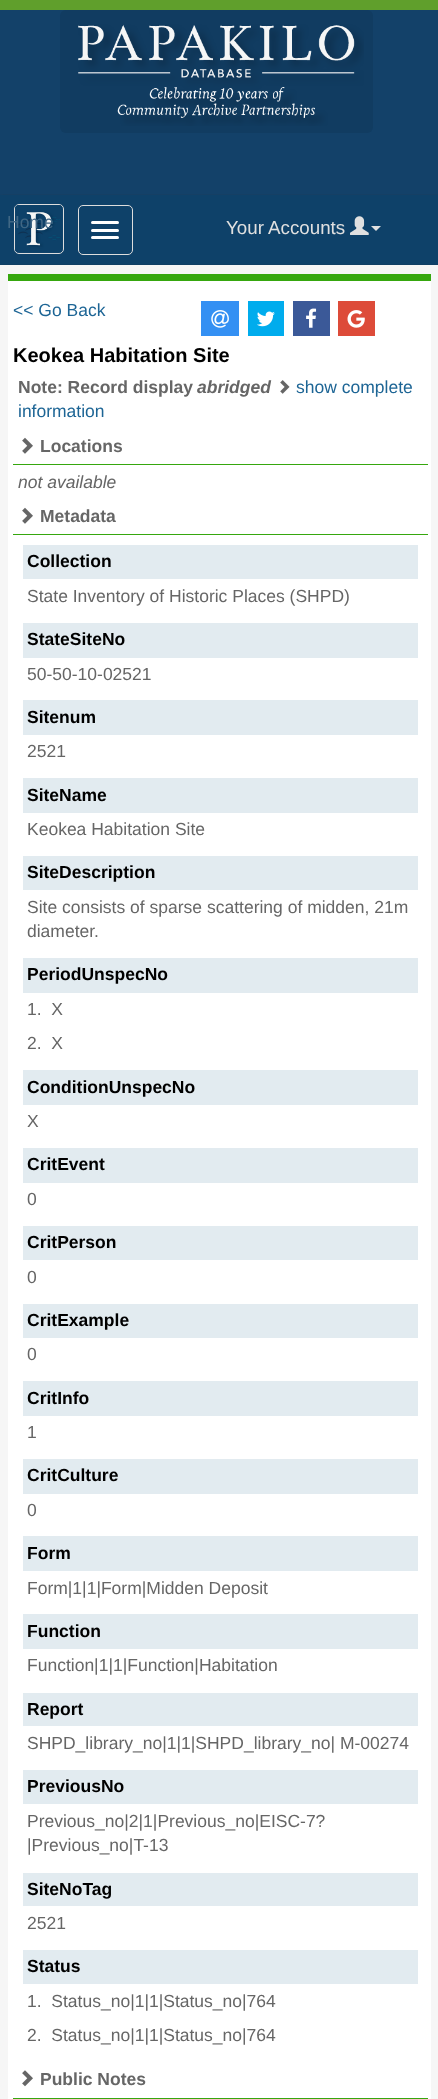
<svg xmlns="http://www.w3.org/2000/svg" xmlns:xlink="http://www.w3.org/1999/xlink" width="438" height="2099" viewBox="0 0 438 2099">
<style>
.cls-1{font:17.5px Liberation Sans;fill:#406785}
.cls-2{font:18.75px Liberation Sans;fill:#e0e0e0}
.cls-3{font:17.5px Liberation Sans;fill:#1d6595}
.cls-4{font:bold 20px Liberation Sans;fill:#000000}
.cls-5{font:bold 17.5px Liberation Sans;fill:#666666}
.cls-6{font:italic bold 17.5px Liberation Sans;fill:#666666}
.cls-7{font:italic 17.5px Liberation Sans;fill:#666666}
.cls-8{font:bold 17.5px Liberation Sans;fill:#000000}
.cls-9{font:17.5px Liberation Sans;fill:#666666}
</style>
<rect width="100%" height="100%" fill="#134169"/>
<rect fill="#609f2c" x="0" y="0" width="438" height="10"/>
<rect fill="#113c61" x="60" y="10" width="313" height="123" rx="6"/>
<image xlink:href="image0.png" x="78" y="24" width="286" height="102"/>
<rect fill="#333333" filter="blur(1px)" x="1" y="196" width="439" height="70"/>
<rect fill="#0e4169" x="0" y="195" width="438" height="70"/>
<rect fill="none" stroke="#dddddd" x="14.5" y="204.5" width="49" height="49" rx="4.5"/>
<image xlink:href="image1.png" x="15" y="205" width="48" height="48"/>
<rect fill="none" stroke="#dddddd" x="78.5" y="205.5" width="54" height="49" rx="4.5"/>
<rect fill="#ffffff" x="91" y="221" width="28" height="3" rx="1.5"/>
<rect fill="#ffffff" x="91" y="229" width="28" height="3" rx="1.5"/>
<rect fill="#ffffff" x="91" y="236" width="28" height="3" rx="1.5"/>
<image xlink:href="image2.png" x="350" y="216" width="19" height="19"/>
<path fill="#e0e0e0" d="M371 226H381L376 231Z"/>
<rect fill="#333333" filter="blur(1px)" x="1" y="266" width="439" height="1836"/>
<rect fill="#f6f6f6" x="0" y="265" width="438" height="1834"/>
<rect fill="#ffffff" x="8" y="281" width="423" height="1818"/>
<rect fill="#36a70e" x="8" y="274" width="423" height="7"/>
<rect fill="#3490f3" x="201" y="301" width="38" height="35"/>
<image xlink:href="image3.png" x="211" y="310" width="18" height="18"/>
<rect fill="#00aced" x="248" y="301" width="36" height="35"/>
<image xlink:href="image4.png" x="257" y="311" width="18" height="16"/>
<rect fill="#3b5998" x="293" y="301" width="37" height="35"/>
<image xlink:href="image5.png" x="306" y="308" width="11" height="20"/>
<rect fill="#dd4b39" x="338" y="301" width="37" height="35"/>
<image xlink:href="image6.png" x="347" y="310" width="18" height="18"/>
<image xlink:href="image7.png" x="280" y="380" width="10" height="14"/>
<rect fill="#36a70e" x="13" y="464" width="415" height="1"/>
<image xlink:href="image8.png" x="22" y="437" width="11" height="17"/>
<rect fill="#36a70e" x="13" y="534" width="415" height="1"/>
<image xlink:href="image8.png" x="22" y="507" width="11" height="17"/>
<rect fill="#e2ebf0" x="23" y="545" width="395" height="34"/>
<rect fill="#e2ebf0" x="23" y="623" width="395" height="35"/>
<rect fill="#e2ebf0" x="23" y="700" width="395" height="35"/>
<rect fill="#e2ebf0" x="23" y="778" width="395" height="35"/>
<rect fill="#e2ebf0" x="23" y="856" width="395" height="34"/>
<rect fill="#e2ebf0" x="23" y="958" width="395" height="35"/>
<rect fill="#e2ebf0" x="23" y="1070" width="395" height="35"/>
<rect fill="#e2ebf0" x="23" y="1148" width="395" height="35"/>
<rect fill="#e2ebf0" x="23" y="1226" width="395" height="34"/>
<rect fill="#e2ebf0" x="23" y="1304" width="395" height="34"/>
<rect fill="#e2ebf0" x="23" y="1381" width="395" height="35"/>
<rect fill="#e2ebf0" x="23" y="1459" width="395" height="35"/>
<rect fill="#e2ebf0" x="23" y="1536" width="395" height="35"/>
<rect fill="#e2ebf0" x="23" y="1614" width="395" height="35"/>
<rect fill="#e2ebf0" x="23" y="1693" width="395" height="33"/>
<rect fill="#e2ebf0" x="23" y="1770" width="395" height="34"/>
<rect fill="#e2ebf0" x="23" y="1873" width="395" height="33"/>
<rect fill="#e2ebf0" x="23" y="1950" width="395" height="34"/>
<rect fill="#36a70e" x="13" y="2098" width="415" height="1"/>
<image xlink:href="image9.png" x="22" y="2070" width="11" height="17"/>
<text class="cls-1" x="7" y="228">Home</text>
<text class="cls-2" x="226" y="234">Your Accounts</text>
<text class="cls-3" x="13" y="316">&lt;&lt; Go Back</text>
<text class="cls-4" x="13" y="362">Keokea Habitation Site</text>
<text class="cls-5" x="18" y="393">Note: Record display</text>
<text class="cls-6" x="197" y="393">abridged</text>
<text class="cls-3" x="296" y="393">show complete</text>
<text class="cls-3" x="18" y="417">information</text>
<text class="cls-5" x="40" y="452">Locations</text>
<text class="cls-7" x="18" y="488">not available</text>
<text class="cls-5" x="40" y="522">Metadata</text>
<text class="cls-8" x="27" y="567">Collection</text>
<text class="cls-9" x="27" y="602">State Inventory of Historic Places (SHPD)</text>
<text class="cls-8" x="27" y="645">StateSiteNo</text>
<text class="cls-9" x="27" y="680">50-50-10-02521</text>
<text class="cls-8" x="27" y="723">Sitenum</text>
<text class="cls-9" x="27" y="757">2521</text>
<text class="cls-8" x="27" y="801">SiteName</text>
<text class="cls-9" x="27" y="835">Keokea Habitation Site</text>
<text class="cls-8" x="27" y="878">SiteDescription</text>
<text class="cls-9"><tspan x="27" y="913">Site consists of sparse scattering of midden, 21m</tspan><tspan x="27" y="937">diameter.</tspan></text>
<text class="cls-8" x="27" y="980">PeriodUnspecNo</text>
<text class="cls-9" xml:space="preserve"><tspan x="27" y="1015">1.  X</tspan><tspan x="27" y="1049">2.  X</tspan></text>
<text class="cls-8" x="27" y="1093">ConditionUnspecNo</text>
<text class="cls-9" x="27" y="1127">X</text>
<text class="cls-8" x="27" y="1170">CritEvent</text>
<text class="cls-9" x="27" y="1205">0</text>
<text class="cls-8" x="27" y="1248">CritPerson</text>
<text class="cls-9" x="27" y="1283">0</text>
<text class="cls-8" x="27" y="1326">CritExample</text>
<text class="cls-9" x="27" y="1360">0</text>
<text class="cls-8" x="27" y="1404">CritInfo</text>
<text class="cls-9" x="27" y="1438">1</text>
<text class="cls-8" x="27" y="1481">CritCulture</text>
<text class="cls-9" x="27" y="1516">0</text>
<text class="cls-8" x="27" y="1559">Form</text>
<text class="cls-9" x="27" y="1594">Form|1|1|Form|Midden Deposit</text>
<text class="cls-8" x="27" y="1637">Function</text>
<text class="cls-9" x="27" y="1671">Function|1|1|Function|Habitation</text>
<text class="cls-8" x="27" y="1715">Report</text>
<text class="cls-9" x="27" y="1749">SHPD_library_no|1|1|SHPD_library_no| M-00274</text>
<text class="cls-8" x="27" y="1792">PreviousNo</text>
<text class="cls-9"><tspan x="27" y="1827">Previous_no|2|1|Previous_no|EISC-7?</tspan><tspan x="27" y="1851">|Previous_no|T-13</tspan></text>
<text class="cls-8" x="27" y="1895">SiteNoTag</text>
<text class="cls-9" x="27" y="1929">2521</text>
<text class="cls-8" x="27" y="1972">Status</text>
<text class="cls-9" xml:space="preserve"><tspan x="27" y="2007">1.  Status_no|1|1|Status_no|764</tspan><tspan x="27" y="2041">2.  Status_no|1|1|Status_no|764</tspan></text>
<text class="cls-5" x="40" y="2085">Public Notes</text>
</svg>
